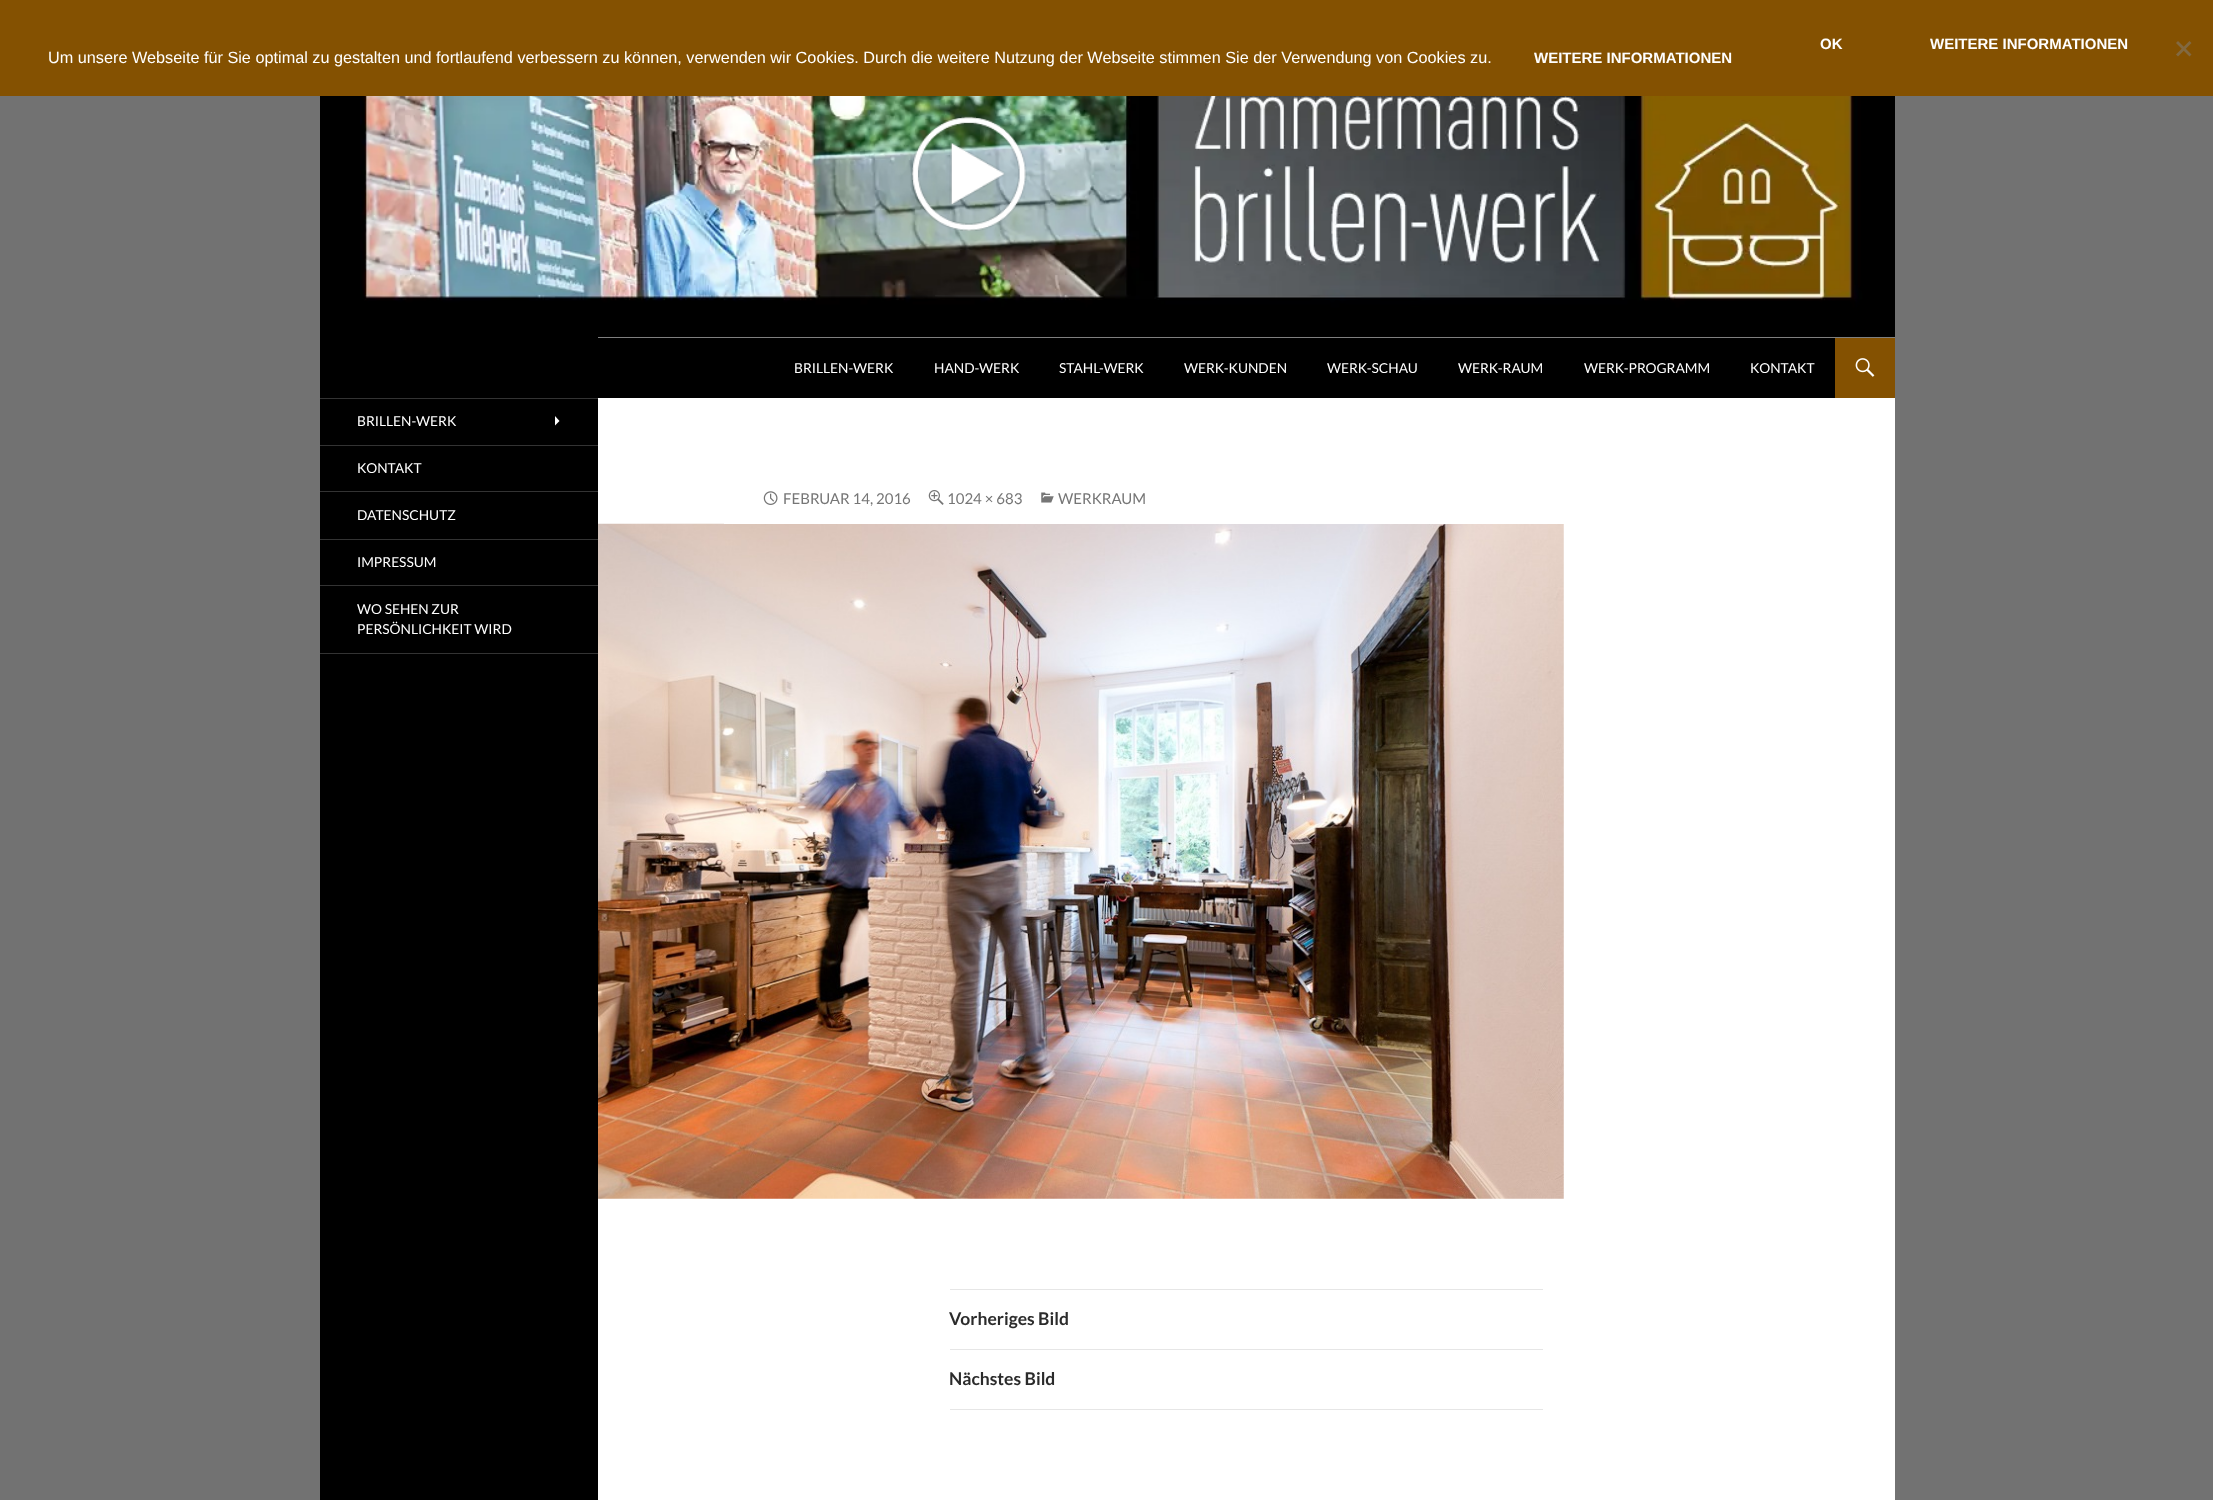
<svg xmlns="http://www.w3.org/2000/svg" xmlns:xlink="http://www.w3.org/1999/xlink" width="2213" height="1500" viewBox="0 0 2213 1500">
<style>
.cls-1{font:bold 15px Liberation Sans;fill:#ffffff}
.cls-2{font:16.25px Liberation Sans;fill:#ffffff}
.cls-3{font:13.75px Lato;fill:#ffffff}
.cls-4{font:15px Lato;fill:#767676}
.cls-5{font:bold 17.5px Lato;fill:#2b2b2b}
</style>
<rect width="100%" height="100%" fill="#727272"/>
<rect fill="#845101" x="0" y="0" width="2213" height="96"/>
<path fill="#826941" d="M2189.5 41L2191.5 43L2178 56.5L2176 54.5Z"/>
<path fill="#826941" d="M2176 43L2178 41L2191.5 54.5L2189.5 56.5Z"/>
<rect fill="#ffffff" x="598" y="337" width="1297" height="1163"/>
<rect fill="#000000" x="320" y="96" width="278" height="1404"/>
<image xlink:href="image0.png" x="360" y="96" width="1535" height="242"/>
<image xlink:href="image1.png" x="911" y="116" width="116" height="115"/>
<rect fill="#000000" x="598" y="338" width="1237" height="60"/>
<rect fill="#845101" x="1835" y="338" width="60" height="60"/>
<image xlink:href="image2.png" x="1855" y="358" width="20" height="19"/>
<rect fill="#333333" x="320" y="653" width="278" height="1"/>
<rect fill="#333333" x="320" y="398" width="278" height="1"/>
<path fill="#ffffff" d="M555 425.5L559.5 421L555 416Z"/>
<rect fill="#333333" x="320" y="445" width="278" height="1"/>
<rect fill="#333333" x="320" y="491" width="278" height="1"/>
<rect fill="#333333" x="320" y="539" width="278" height="1"/>
<rect fill="#333333" x="320" y="585" width="278" height="1"/>
<image xlink:href="image6.png" x="598" y="523" width="966" height="676"/>
<rect fill="#ffffff" x="724" y="523" width="840" height="1"/>
<image xlink:href="image3.png" x="763" y="491" width="15" height="14"/>
<image xlink:href="image4.png" x="928" y="490" width="16" height="15"/>
<image xlink:href="image5.png" x="1041" y="492" width="13" height="11"/>
<rect fill="#e6e6e6" x="950" y="1289" width="593" height="1"/>
<rect fill="#e6e6e6" x="950" y="1349" width="593" height="1"/>
<rect fill="#e6e6e6" x="950" y="1409" width="593" height="1"/>
<text class="cls-1" x="1820" y="49">OK</text>
<text class="cls-1" x="1930" y="49">WEITERE INFORMATIONEN</text>
<text class="cls-2" x="48" y="63">Um unsere Webseite für Sie optimal zu gestalten und fortlaufend verbessern zu können, verwenden wir Cookies. Durch die weitere Nutzung der Webseite stimmen Sie der Verwendung von Cookies zu.</text>
<text class="cls-1" x="1534" y="63">WEITERE INFORMATIONEN</text>
<text class="cls-3" x="794" y="373">BRILLEN-WERK</text>
<text class="cls-3" x="934" y="373">HAND-WERK</text>
<text class="cls-3" x="1059" y="373">STAHL-WERK</text>
<text class="cls-3" x="1184" y="373">WERK-KUNDEN</text>
<text class="cls-3" x="1327" y="373">WERK-SCHAU</text>
<text class="cls-3" x="1458" y="373">WERK-RAUM</text>
<text class="cls-3" x="1584" y="373">WERK-PROGRAMM</text>
<text class="cls-3" x="1750" y="373">KONTAKT</text>
<text class="cls-3" x="357" y="426">BRILLEN-WERK</text>
<text class="cls-3" x="357" y="473">KONTAKT</text>
<text class="cls-3" x="357" y="520">DATENSCHUTZ</text>
<text class="cls-3" x="357" y="567">IMPRESSUM</text>
<text class="cls-3"><tspan x="357" y="614">WO SEHEN ZUR</tspan><tspan x="357" y="634">PERSÖNLICHKEIT WIRD</tspan></text>
<text class="cls-4" x="783" y="504">FEBRUAR 14, 2016</text>
<text class="cls-4" x="947" y="504">1024 × 683</text>
<text class="cls-4" x="1058" y="504">WERKRAUM</text>
<text class="cls-5" x="949" y="1325">Vorheriges Bild</text>
<text class="cls-5" x="949" y="1385">Nächstes Bild</text>
</svg>
